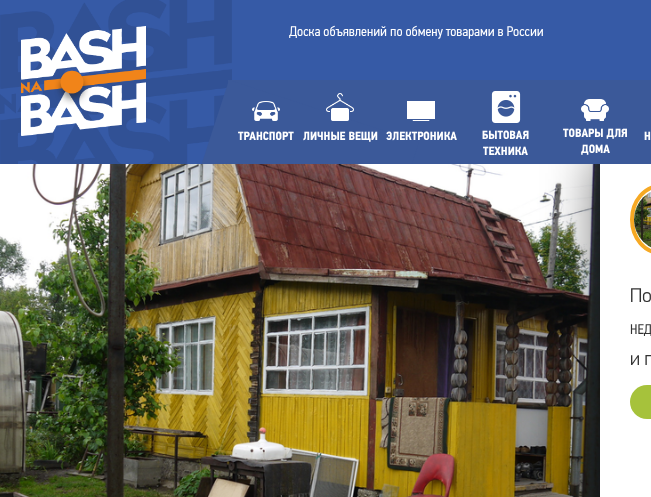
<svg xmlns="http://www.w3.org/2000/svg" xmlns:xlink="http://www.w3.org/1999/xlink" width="651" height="497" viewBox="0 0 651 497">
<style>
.cls-1{font:14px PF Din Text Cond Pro;fill:#ffffff}
.cls-2{font:bold 12px PF Din Text Cond Pro;fill:#ffffff}
.cls-3{font:300 20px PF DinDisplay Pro;fill:#333333}
.cls-4{font:14px PF Din Text Cond Pro;fill:#333333}
</style>
<defs>
<clipPath id="clip1"><rect x="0" y="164" width="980" height="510"/></clipPath>
</defs>
<rect width="100%" height="100%" fill="#365aa6"/>
<image xlink:href="image0.png" x="0" y="0" width="232" height="164"/>
<image xlink:href="image1.png" x="21" y="26" width="125" height="110"/>
<rect fill="#3b5999" x="228" y="80" width="423" height="84"/>
<path fill="#3b5999" d="M229 80L419 142L357 332L167 270Z"/>
<image xlink:href="image2.png" x="252" y="101" width="28" height="20"/>
<image xlink:href="image3.png" x="326" y="93" width="28" height="28"/>
<image xlink:href="image4.png" x="407" y="101" width="28" height="20"/>
<image xlink:href="image5.png" x="491" y="91" width="30" height="32"/>
<image xlink:href="image6.png" x="581" y="99" width="28" height="22"/>
<image xlink:href="image7.png" x="0" y="164" width="600" height="333"/>
<g clip-path="url(#clip1)">
<rect fill="#000000" fill-opacity="0.52" filter="blur(24px)" x="594" y="157" width="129" height="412"/>
</g>
<rect fill="#ffffff" x="600" y="164" width="51" height="333"/>
<rect fill="none" stroke="#f6a924" stroke-width="4" x="632" y="186" width="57" height="67" rx="33.5"/>
<image xlink:href="image8.png" x="634" y="192" width="17" height="56"/>
<rect fill="#a6c23b" x="630" y="385" width="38" height="34" rx="17"/>
<text class="cls-1" x="289" y="36">Доска объявлений по обмену товарами в России</text>
<text class="cls-2" x="238" y="140">ТРАНСПОРТ</text>
<text class="cls-2" x="303" y="140">ЛИЧНЫЕ ВЕЩИ</text>
<text class="cls-2" x="386" y="140">ЭЛЕКТРОНИКА</text>
<text class="cls-2" x="482" y="139">БЫТОВАЯ</text>
<text class="cls-2" x="483" y="155">ТЕХНИКА</text>
<text class="cls-2" x="563" y="137">ТОВАРЫ ДЛЯ</text>
<text class="cls-2" x="581" y="153">ДОМА</text>
<text class="cls-2" x="644" y="140">Н</text>
<text class="cls-3" x="630" y="302">По</text>
<text class="cls-4" x="630" y="334">НЕД</text>
<text class="cls-3" x="630" y="365">и г</text>
</svg>
